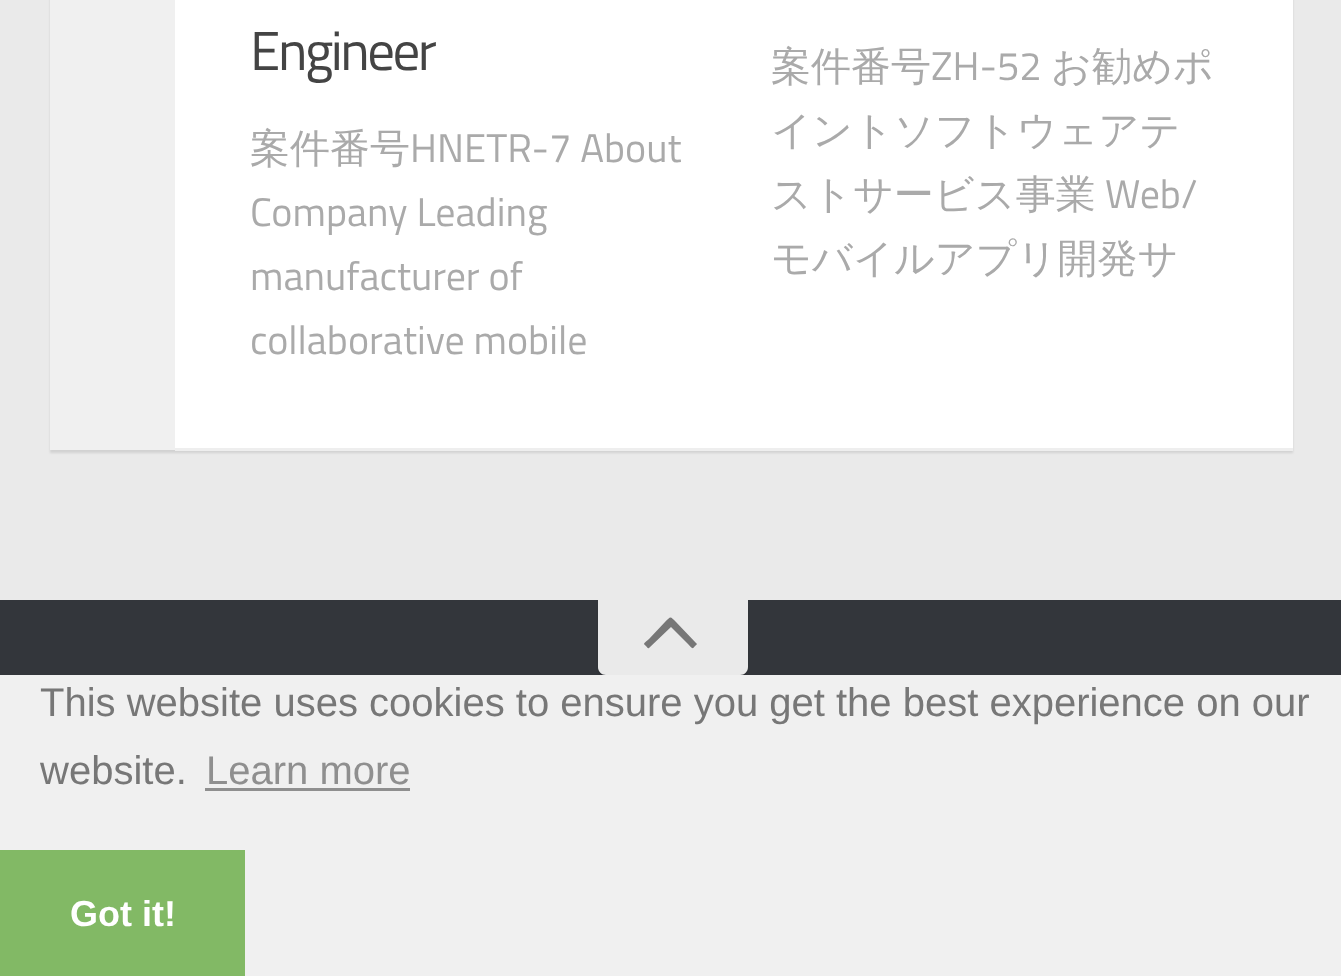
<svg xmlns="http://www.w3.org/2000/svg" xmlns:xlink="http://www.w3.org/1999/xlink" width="1341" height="976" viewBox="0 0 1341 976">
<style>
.cls-1{font:55px Titillium Web;letter-spacing:-2.5px;fill:#444444}
.cls-2{font:500 40px WenQuanYi Zen Hei;fill:#aaaaaa}
.cls-3{font:40px Titillium Web;fill:#aaaaaa}
.cls-4{font:40px Liberation Sans;fill:#777777}
.cls-5{font:40px Liberation Sans;fill:#8f8f8f}
.cls-6{font:bold 36px Liberation Sans;fill:#ffffff}
</style>
<defs>
<clipPath id="clip1"><path d="M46 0H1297V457H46ZM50-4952H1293V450H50Z" clip-rule="evenodd"/></clipPath>
</defs>
<rect width="100%" height="100%" fill="#eaeaea"/>
<rect fill="#ffffff" x="175" y="0" width="1118" height="448"/>
<g clip-path="url(#clip1)">
<rect fill="#000000" fill-opacity="0.1" filter="blur(1px)" x="50" y="-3" width="1243" height="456"/>
</g>
<rect fill="#f0f0f0" x="50" y="0" width="125" height="450"/>
<rect fill="#eeeeee" x="175" y="448" width="1118" height="3"/>
<rect fill="#33363b" x="0" y="600" width="1341" height="75"/>
<rect fill="#000000" fill-opacity="0.1" filter="blur(1px)" x="598" y="603" width="150" height="75" rx="8"/>
<path fill="#eaeaea" d="M598 600H748V667C748 671.5 744.5 675 740 675H606C601.5 675 598 671.5 598 667Z"/>
<path fill="#777777" d="M696 643C698 644 696 645 695 646C692 650 692 648 688 644L671 627L649 648C648 649 647 647 646 646C642 643 645 643 649 639L665 622C671 616 670 616 676 622Z"/>
<rect fill="#f0f0f0" x="0" y="675" width="1341" height="301"/>
<rect fill="#8f8f8f" x="205" y="788" width="205" height="3"/>
<rect fill="#82b965" x="0" y="850" width="245" height="126"/>
<text class="cls-1" x="250" y="70">Engineer</text>
<text class="cls-2" x="250" y="162">案件番号</text>
<text class="cls-3" x="410" y="162">HNETR-7 About</text>
<text class="cls-3"><tspan x="250" y="226">Company Leading</tspan><tspan x="250" y="290">manufacturer of</tspan><tspan x="250" y="354">collaborative mobile</tspan></text>
<text class="cls-2" x="771" y="80">案件番号</text>
<text class="cls-3" x="931" y="80">ZH-52</text>
<text class="cls-2" x="1051" y="80">お勧めポ</text>
<text class="cls-2"><tspan x="771" y="144">イントソフトウェアテ</tspan><tspan x="771" y="208">ストサービス事業</tspan></text>
<text class="cls-3" x="1105" y="208">Web/</text>
<text class="cls-2" x="771" y="272">モバイルアプリ開発サ</text>
<text class="cls-4"><tspan x="40" y="716">This website uses cookies to ensure you get the best experience on our</tspan><tspan x="40" y="784">website.</tspan></text>
<text class="cls-5" x="206" y="784">Learn more</text>
<text class="cls-6" x="70" y="926">Got it!</text>
</svg>
